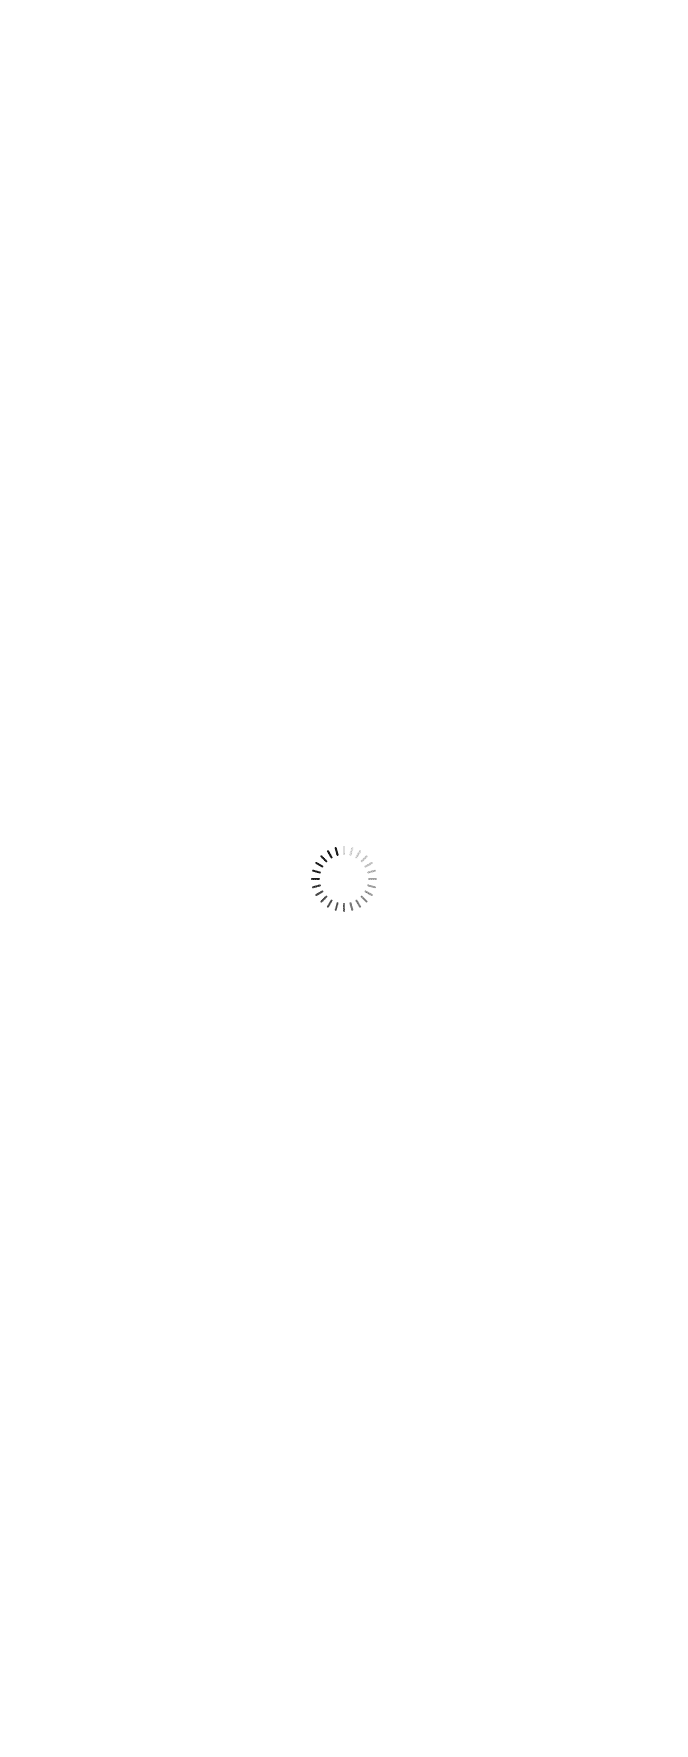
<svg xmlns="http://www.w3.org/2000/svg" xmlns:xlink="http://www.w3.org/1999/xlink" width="688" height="1757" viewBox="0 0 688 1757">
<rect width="100%" height="100%" fill="#ffffff"/>
<image xlink:href="image0.png" x="311" y="846" width="66" height="66"/>
</svg>
